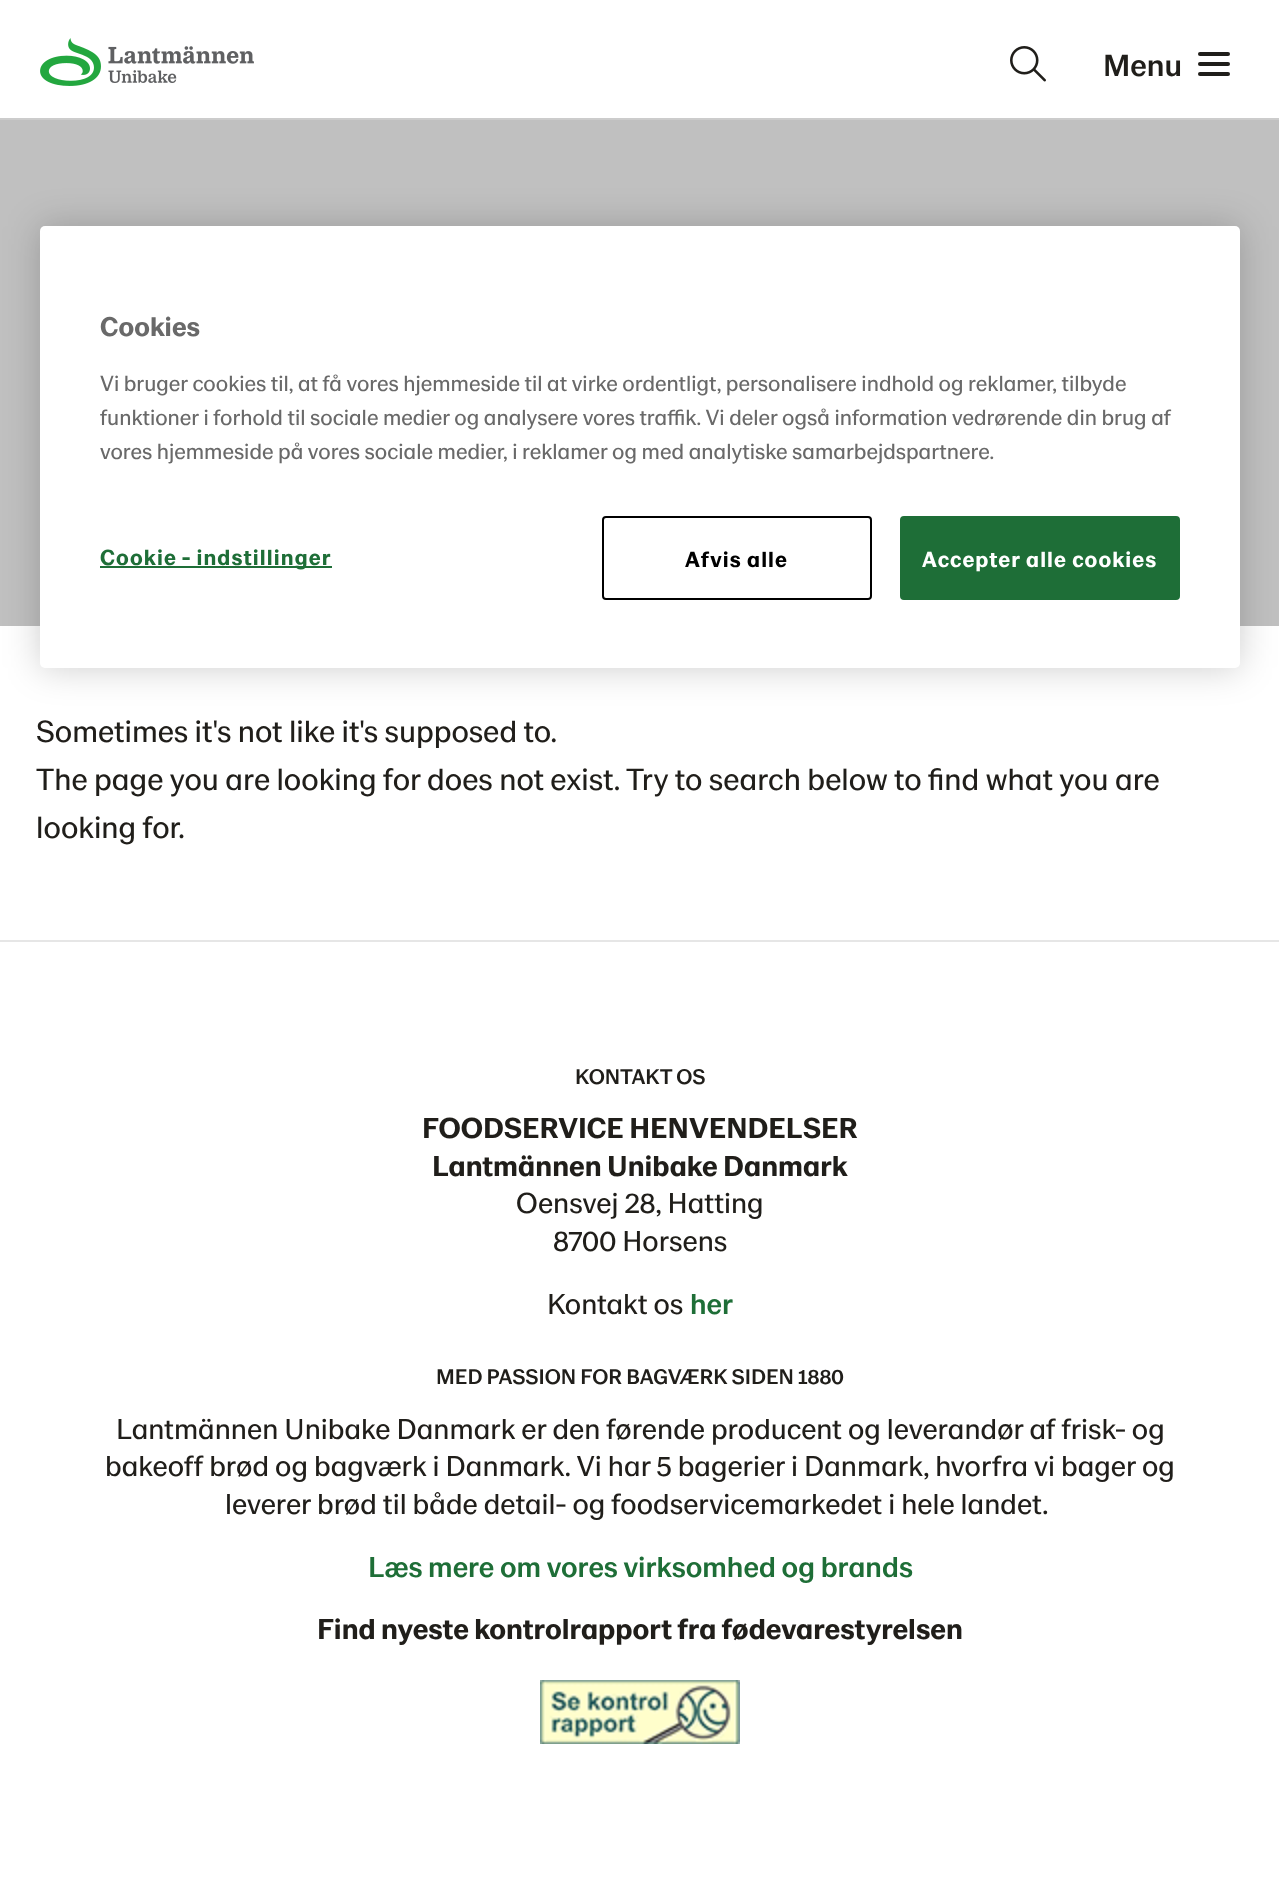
<svg xmlns="http://www.w3.org/2000/svg" xmlns:xlink="http://www.w3.org/1999/xlink" width="1279" height="1887" viewBox="0 0 1279 1887">
<style>
.cls-1{font:500 32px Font;fill:#201e1a}
.cls-2{font:32px Font;fill:#201e1a}
.cls-3{font:500 22px Font;fill:#201e1a}
.cls-4{font:bold 30px Font;fill:#201e1a}
.cls-5{font:30px Font;fill:#201e1a}
.cls-6{font:500 30px Font;fill:#1e6e37}
.cls-7{font:bold 28px Font;fill:#696969}
.cls-8{font:22.75px Font;fill:#696969}
.cls-9{font:bold 22.75px Font;letter-spacing:1.1px;fill:#1e6e37}
.cls-10{font:bold 22.75px Font;letter-spacing:1.1px;fill:#000000}
.cls-11{font:bold 22.75px Font;letter-spacing:1.1px;fill:#ffffff}
</style>
<rect width="100%" height="100%" fill="#ffffff"/>
<rect fill="#cccccc" x="0" y="118" width="1279" height="2"/>
<image xlink:href="image0.png" x="40" y="38" width="214" height="48"/>
<image xlink:href="image1.png" x="1010" y="46" width="36" height="36"/>
<rect fill="#201e1a" x="1198" y="52" width="32" height="4" rx="2"/>
<rect fill="#201e1a" x="1198" y="62" width="32" height="4" rx="2"/>
<rect fill="#201e1a" x="1198" y="72" width="32" height="4" rx="2"/>
<rect fill="#c0c0c0" x="0" y="120" width="1279" height="506"/>
<rect fill="#e6e6e6" x="0" y="940" width="1279" height="2"/>
<image xlink:href="image2.png" x="540" y="1680" width="200" height="64"/>
<rect fill="#000000" fill-opacity="0.2" filter="blur(18px)" x="40" y="226" width="1200" height="442" rx="5"/>
<rect fill="#ffffff" x="40" y="226" width="1200" height="442" rx="5"/>
<rect fill="#1e6e37" x="100" y="566" width="232" height="2"/>
<rect fill="none" stroke="#000000" stroke-width="2" x="603" y="517" width="268" height="82" rx="3"/>
<rect fill="#1e6e37" stroke="#1e6e37" stroke-width="2" x="901" y="517" width="278" height="82" rx="3"/>
<text class="cls-1" x="1103" y="76">Menu</text>
<text class="cls-2"><tspan x="36" y="742">Sometimes it's not like it's supposed to.</tspan><tspan x="36" y="790">The page you are looking for does not exist. Try to search below to find what you are</tspan><tspan x="36" y="838">looking for.</tspan></text>
<text class="cls-3" x="575" y="1084">KONTAKT OS</text>
<text class="cls-4" x="422" y="1138">FOODSERVICE HENVENDELSER</text>
<text class="cls-4" x="432" y="1176">Lantmännen Unibake Danmark</text>
<text class="cls-5" x="516" y="1213">Oensvej 28, Hatting</text>
<text class="cls-5" x="553" y="1251">8700 Horsens</text>
<text class="cls-5" x="547" y="1314">Kontakt os</text>
<text class="cls-6" x="690" y="1314">her</text>
<text class="cls-3" x="436" y="1384">MED PASSION FOR BAGVÆRK SIDEN 1880</text>
<text class="cls-5" x="116" y="1439">Lantmännen Unibake Danmark er den førende producent og leverandør af frisk- og</text>
<text class="cls-5" x="105" y="1476">bakeoff brød og bagværk i Danmark. Vi har 5 bagerier i Danmark, hvorfra vi bager og</text>
<text class="cls-5" x="225" y="1514">leverer brød til både detail- og foodservicemarkedet i hele landet.</text>
<text class="cls-6" x="368" y="1577">Læs mere om vores virksomhed og brands</text>
<text class="cls-4" x="317" y="1639">Find nyeste kontrolrapport fra fødevarestyrelsen</text>
<text class="cls-7" x="100" y="336">Cookies</text>
<text class="cls-8"><tspan x="100" y="391">Vi bruger cookies til, at få vores hjemmeside til at virke ordentligt, personalisere indhold og reklamer, tilbyde</tspan><tspan x="100" y="425">funktioner i forhold til sociale medier og analysere vores traffik. Vi deler også information vedrørende din brug af</tspan><tspan x="100" y="459">vores hjemmeside på vores sociale medier, i reklamer og med analytiske samarbejdspartnere.</tspan></text>
<text class="cls-9" x="100" y="565">Cookie - indstillinger</text>
<text class="cls-10" x="685" y="567">Afvis alle</text>
<text class="cls-11" x="922" y="567">Accepter alle cookies</text>
</svg>
